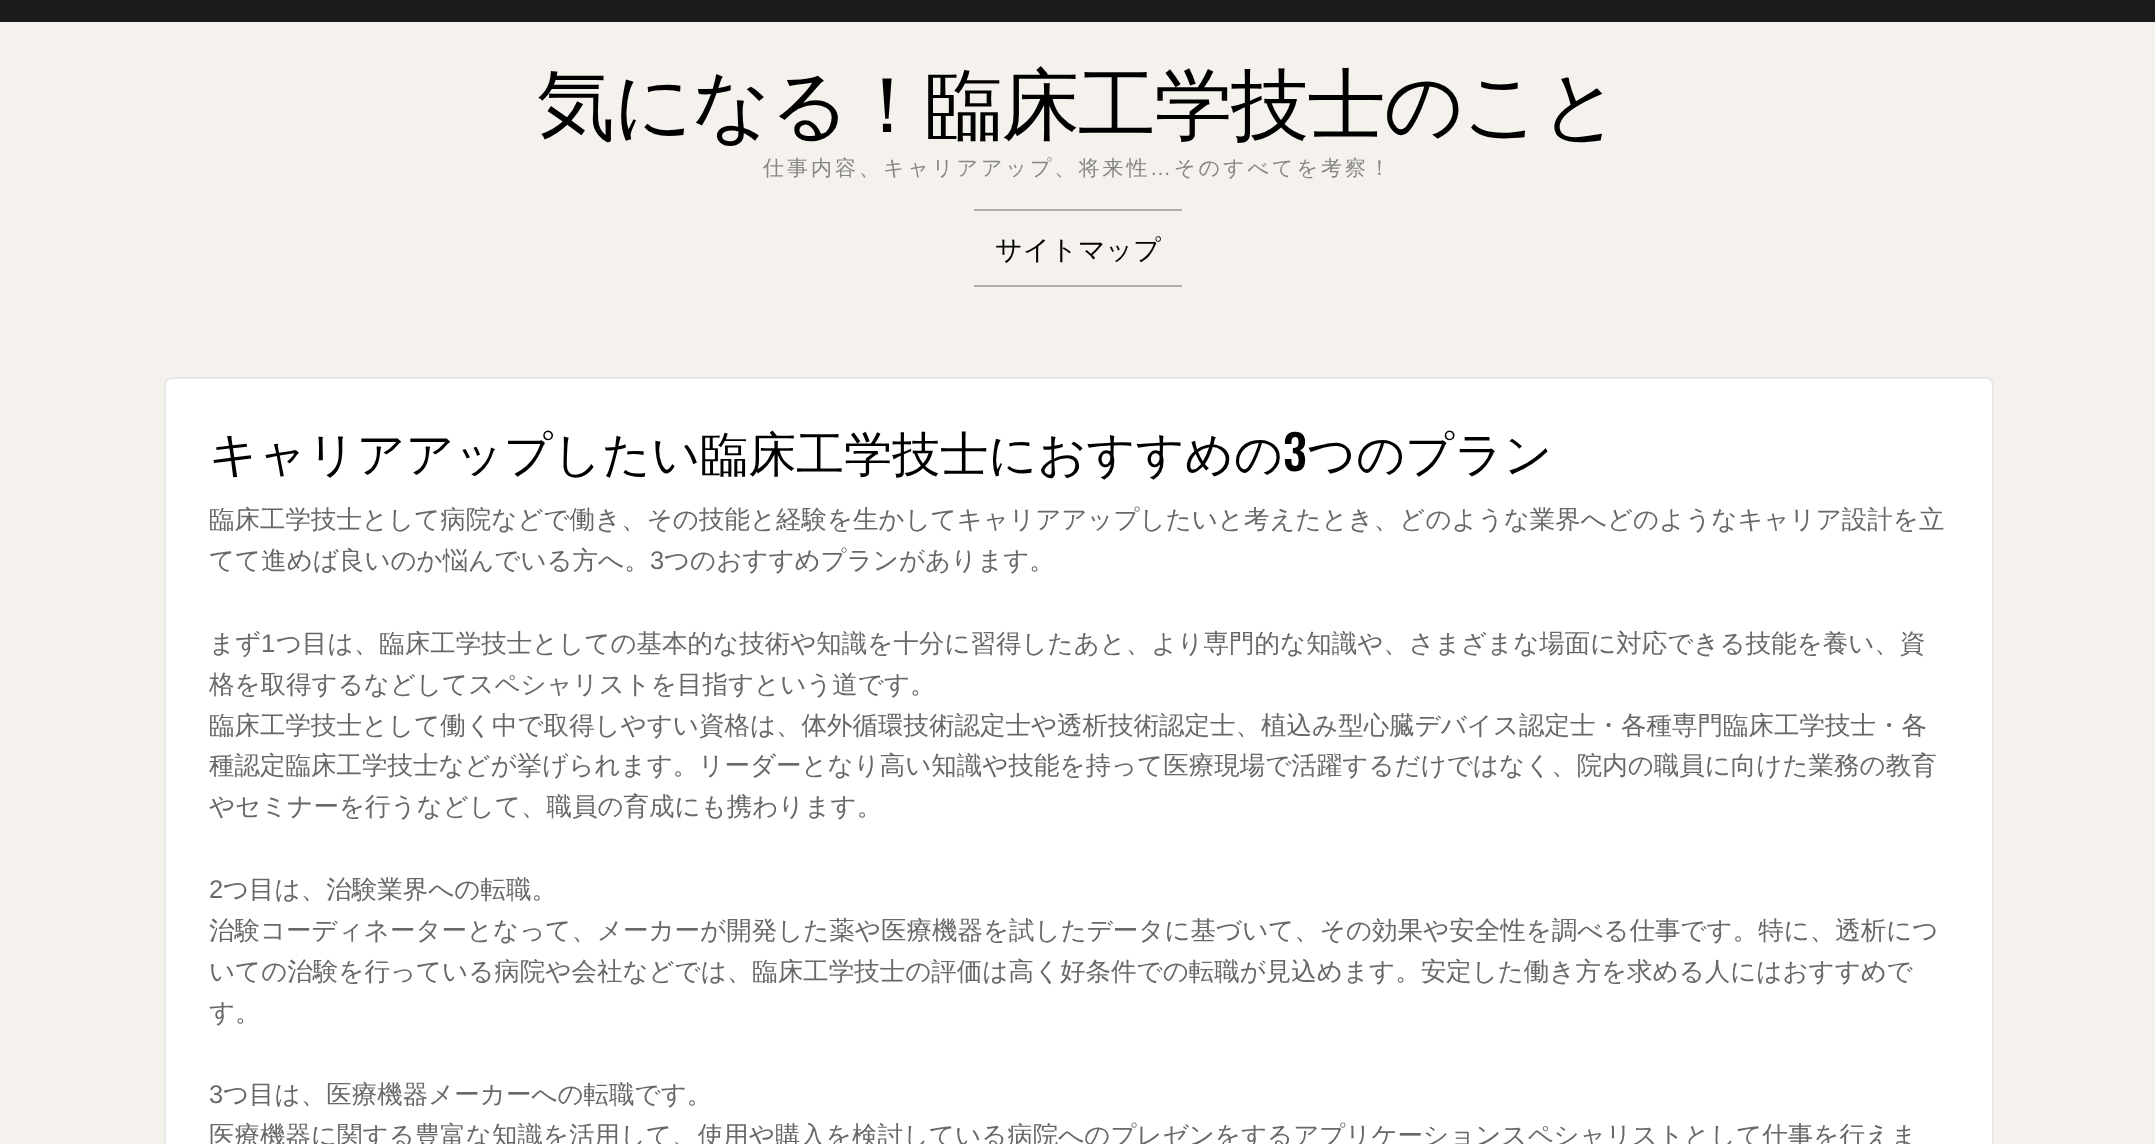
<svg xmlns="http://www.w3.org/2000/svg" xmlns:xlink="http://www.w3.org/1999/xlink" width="2155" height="1144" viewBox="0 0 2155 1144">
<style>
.cls-1{font:500 78px WenQuanYi Zen Hei;letter-spacing:-1.5px;fill:#000000}
.cls-2{font:500 21px WenQuanYi Zen Hei;letter-spacing:3px;fill:#868686}
.cls-3{font:21px Liberation Sans;letter-spacing:3px;fill:#868686}
.cls-4{font:500 27px WenQuanYi Zen Hei;fill:#000000}
.cls-5{font:500 48px WenQuanYi Zen Hei;fill:#000000}
.cls-6{font:500 48px Oswald;fill:#000000}
.cls-7{font:500 25.5px WenQuanYi Zen Hei;fill:#686868}
.cls-8{font:25.5px Liberation Sans;fill:#686868}
</style>
<rect width="100%" height="100%" fill="#1b1b1b"/>
<rect fill="#f5f2ed" x="0" y="22" width="2155" height="1122"/>
<rect fill="#afafaf" x="974" y="209" width="208" height="2"/>
<rect fill="#afafaf" x="974" y="285" width="208" height="2"/>
<rect fill="#ffffff" stroke="#e8e8e8" stroke-width="2" x="165" y="378" width="1828" height="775" rx="7"/>
<text class="cls-1" x="537" y="132">気になる！臨床工学技士のこと</text>
<text class="cls-2" x="763" y="175">仕事内容、キャリアアップ、将来性</text>
<text class="cls-3" x="1150" y="175">…</text>
<text class="cls-2" x="1174" y="175">そのすべてを考察！</text>
<text class="cls-4" x="995" y="259">サイトマップ</text>
<text class="cls-5" x="209" y="471">キャリアアップしたい臨床工学技士におすすめの</text>
<text class="cls-6" x="1283" y="471">3</text>
<text class="cls-5" x="1307" y="471">つのプラン</text>
<text class="cls-7"><tspan x="209" y="528">臨床工学技士として病院などで働き、その技能と経験を生かしてキャリアアップしたいと考えたとき、どのような業界へどのようなキャリア設計を立</tspan><tspan x="209" y="569">てて進めば良いのか悩んでいる方へ。</tspan></text>
<text class="cls-8" x="650" y="569">3</text>
<text class="cls-7" x="664" y="569">つのおすすめプランがあります。</text>
<text class="cls-7" x="209" y="652">まず</text>
<text class="cls-8" x="261" y="652">1</text>
<text class="cls-7" x="276" y="652">つ目は、臨床工学技士としての基本的な技術や知識を十分に習得したあと、より専門的な知識や、さまざまな場面に対応できる技能を養い、資</text>
<text class="cls-7"><tspan x="209" y="693">格を取得するなどしてスペシャリストを目指すという道です。</tspan><tspan x="209" y="734">臨床工学技士として働く中で取得しやすい資格は、体外循環技術認定士や透析技術認定士、植込み型心臓デバイス認定士・各種専門臨床工学技士・各</tspan><tspan x="209" y="774">種認定臨床工学技士などが挙げられます。リーダーとなり高い知識や技能を持って医療現場で活躍するだけではなく、院内の職員に向けた業務の教育</tspan><tspan x="209" y="815">やセミナーを行うなどして、職員の育成にも携わります。</tspan></text>
<text class="cls-8" x="209" y="898">2</text>
<text class="cls-7" x="223" y="898">つ目は、治験業界への転職。</text>
<text class="cls-7"><tspan x="209" y="939">治験コーディネーターとなって、メーカーが開発した薬や医療機器を試したデータに基づいて、その効果や安全性を調べる仕事です。特に、透析につ</tspan><tspan x="209" y="980">いての治験を行っている病院や会社などでは、臨床工学技士の評価は高く好条件での転職が見込めます。安定した働き方を求める人にはおすすめで</tspan><tspan x="209" y="1021">す。</tspan></text>
<text class="cls-8" x="209" y="1103">3</text>
<text class="cls-7" x="223" y="1103">つ目は、医療機器メーカーへの転職です。</text>
<text class="cls-7" x="209" y="1144">医療機器に関する豊富な知識を活用して、使用や購入を検討している病院へのプレゼンをするアプリケーションスペシャリストとして仕事を行えま</text>
</svg>
